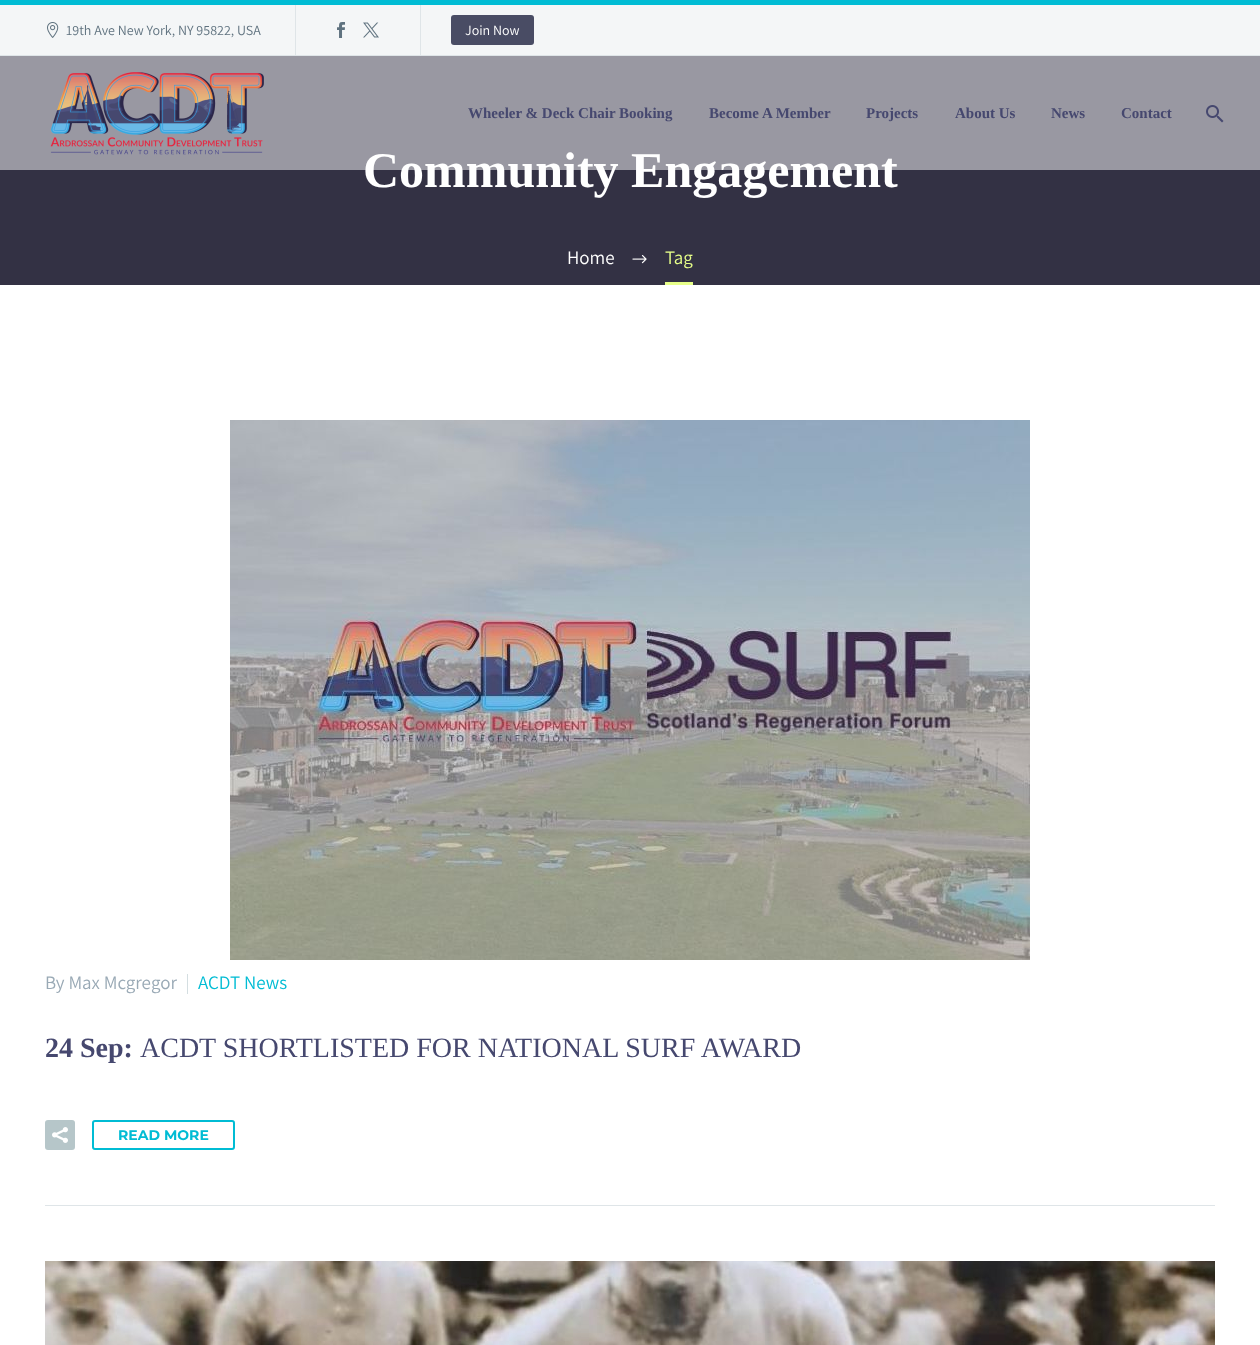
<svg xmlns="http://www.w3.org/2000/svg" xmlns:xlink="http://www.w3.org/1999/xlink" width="1260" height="1345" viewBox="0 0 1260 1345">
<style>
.cls-1{font:14px Assistant;fill:#5f727f}
.cls-2{font:14px Assistant;fill:#ffffff}
.cls-3{font:bold 50px Liberation Serif;fill:#ffffff}
.cls-4{font:bold 15px Liberation Serif;fill:#46486f}
.cls-5{font:19px Assistant;fill:#ffffff}
.cls-6{font:19px Assistant;fill:#e7ff89}
.cls-7{font:19px Assistant;fill:#99a9b5}
.cls-8{font:19px Assistant;fill:#00bcd4}
.cls-9{font:bold 28px Liberation Serif;fill:#46486f}
.cls-10{font:28px Liberation Serif;fill:#46486f}
.cls-11{font:bold 14px Montserrat;fill:#00bcd4}
</style>
<rect width="100%" height="100%" fill="#ffffff"/>
<rect fill="#f4f6f7" x="0" y="5" width="1260" height="50"/>
<rect fill="#00bcd4" x="0" y="0" width="1260" height="5"/>
<rect fill="#dfe5e8" x="0" y="55" width="1260" height="1"/>
<image xlink:href="image0.png" x="47" y="22" width="12" height="16"/>
<rect fill="#dfe5e8" x="295" y="5" width="1" height="50"/>
<image xlink:href="image1.png" x="337" y="22" width="8" height="16"/>
<image xlink:href="image2.png" x="363" y="22" width="16" height="16"/>
<rect fill="#dfe5e8" x="420" y="5" width="1" height="50"/>
<rect fill="#494c64" x="451" y="15" width="83" height="30" rx="3"/>
<rect fill="#333144" x="0" y="56" width="1260" height="229"/>
<image xlink:href="image5.png" x="632" y="255" width="15" height="9"/>
<rect fill="#e7ff89" x="665" y="282" width="28" height="3"/>
<rect fill="#dfe5e8" x="45" y="1205" width="1170" height="1"/>
<image xlink:href="image6.png" x="230" y="420" width="800" height="540"/>
<rect fill="#d4dee1" x="187" y="974" width="1" height="20"/>
<rect fill="#b6c6c9" x="45" y="1120" width="30" height="30" rx="3"/>
<image xlink:href="image7.png" x="52" y="1127" width="16" height="16"/>
<rect fill="none" stroke="#00bcd4" stroke-width="2" x="93" y="1121" width="141" height="28" rx="2"/>
<image xlink:href="image8.png" x="45" y="1261" width="1170" height="84"/>
<text class="cls-1" x="66" y="35">19th Ave New York, NY 95822, USA</text>
<text class="cls-2" x="465" y="35">Join Now</text>
<text class="cls-3" x="363" y="187">Community Engagement</text>
<rect fill="#ffffff" fill-opacity="0.5" x="0" y="56" width="1260" height="114"/>
<image xlink:href="image4.png" x="1206" y="105" width="18" height="18"/>
<text class="cls-4" x="1121" y="118">Contact</text>
<text class="cls-4" x="1051" y="118">News</text>
<text class="cls-4" x="955" y="118">About Us</text>
<text class="cls-4" x="866" y="118">Projects</text>
<text class="cls-4" x="709" y="118">Become A Member</text>
<text class="cls-4" x="468" y="118">Wheeler &amp; Deck Chair Booking</text>
<image xlink:href="image3.png" x="50" y="72" width="214" height="83"/>
<text class="cls-5" x="567" y="264">Home</text>
<text class="cls-6" x="665" y="264">Tag</text>
<text class="cls-7" x="45" y="989">By Max Mcgregor</text>
<text class="cls-8" x="198" y="989">ACDT News</text>
<text class="cls-9" x="45" y="1057">24 Sep:</text>
<text class="cls-10" x="140" y="1057">ACDT SHORTLISTED FOR NATIONAL SURF AWARD</text>
<text class="cls-11" x="118" y="1140">READ MORE</text>
</svg>
